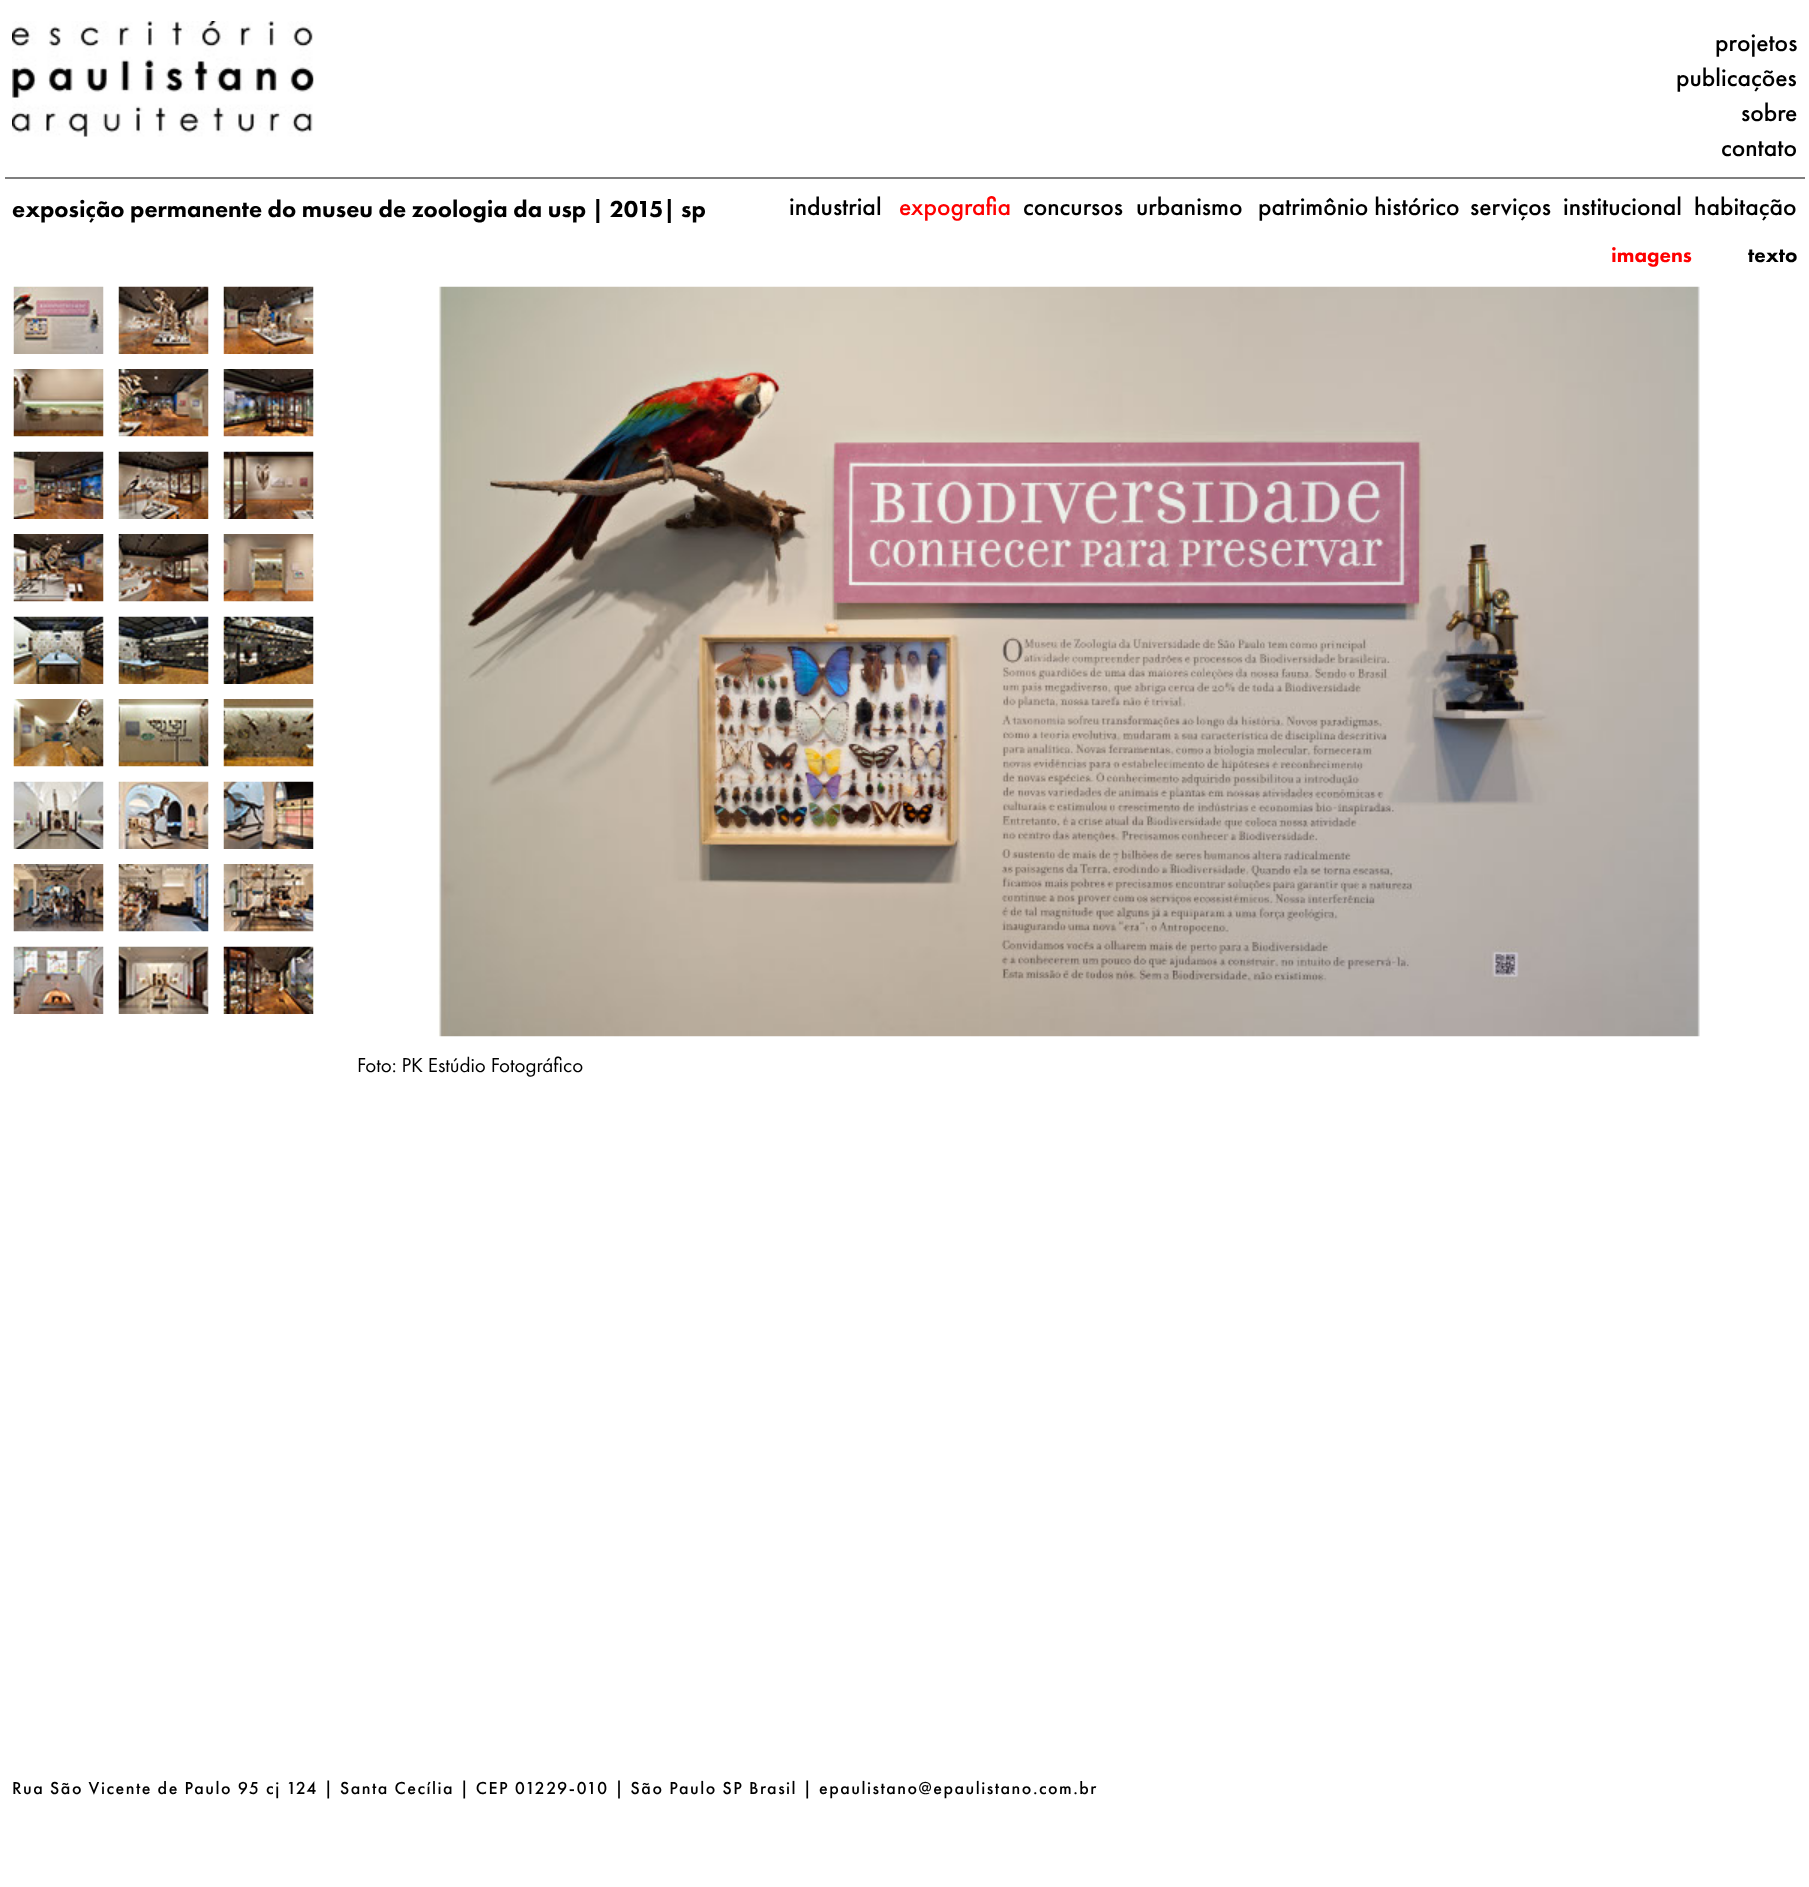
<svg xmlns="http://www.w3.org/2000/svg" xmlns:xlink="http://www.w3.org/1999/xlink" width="1809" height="1887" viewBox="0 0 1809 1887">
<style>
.cls-1{font:500 25.5px Futura PT;fill:#000000}
.cls-2{font:900 24px Futura PT;fill:#000000}
.cls-3{font:500 25.5px Futura PT;fill:#ff0000}
.cls-4{font:900 21px Futura PT;fill:#ff0000}
.cls-5{font:900 21px Futura PT;fill:#000000}
.cls-6{font:21px Futura PT;fill:#000000}
.cls-7{font:500 18px Futura PT;letter-spacing:1.5px;fill:#000000}
</style>
<rect width="100%" height="100%" fill="#ffffff"/>
<rect fill="#7f7f7f" x="5" y="177" width="1800" height="2"/>
<image xlink:href="image0.png" x="12" y="21" width="302" height="116"/>
<image xlink:href="image1.png" x="13" y="286" width="91" height="68"/>
<image xlink:href="image2.png" x="118" y="286" width="91" height="68"/>
<image xlink:href="image3.png" x="223" y="286" width="91" height="68"/>
<image xlink:href="image4.png" x="13" y="369" width="91" height="68"/>
<image xlink:href="image5.png" x="118" y="369" width="91" height="68"/>
<image xlink:href="image6.png" x="223" y="369" width="91" height="68"/>
<image xlink:href="image7.png" x="13" y="451" width="91" height="68"/>
<image xlink:href="image8.png" x="118" y="451" width="91" height="68"/>
<image xlink:href="image9.png" x="223" y="451" width="91" height="68"/>
<image xlink:href="image10.png" x="13" y="534" width="91" height="68"/>
<image xlink:href="image11.png" x="118" y="534" width="91" height="68"/>
<image xlink:href="image12.png" x="223" y="534" width="91" height="68"/>
<image xlink:href="image13.png" x="13" y="616" width="91" height="68"/>
<image xlink:href="image14.png" x="118" y="616" width="91" height="68"/>
<image xlink:href="image15.png" x="223" y="616" width="91" height="68"/>
<image xlink:href="image16.png" x="13" y="699" width="91" height="68"/>
<image xlink:href="image17.png" x="118" y="699" width="91" height="68"/>
<image xlink:href="image18.png" x="223" y="699" width="91" height="68"/>
<image xlink:href="image19.png" x="13" y="781" width="91" height="68"/>
<image xlink:href="image20.png" x="118" y="781" width="91" height="68"/>
<image xlink:href="image21.png" x="223" y="781" width="91" height="68"/>
<image xlink:href="image22.png" x="13" y="864" width="91" height="68"/>
<image xlink:href="image23.png" x="118" y="864" width="91" height="68"/>
<image xlink:href="image24.png" x="223" y="864" width="91" height="68"/>
<image xlink:href="image25.png" x="13" y="946" width="91" height="68"/>
<image xlink:href="image26.png" x="118" y="946" width="91" height="68"/>
<image xlink:href="image27.png" x="223" y="946" width="91" height="68"/>
<image xlink:href="image28.png" x="438" y="286" width="1262" height="751"/>
<text class="cls-1" x="1715" y="51">projetos</text>
<text class="cls-1" x="1676" y="86">publicações</text>
<text class="cls-1" x="1741" y="121">sobre</text>
<text class="cls-1" x="1721" y="156">contato</text>
<text class="cls-2" x="12" y="217">exposição permanente do museu de zoologia da usp | 2015| sp</text>
<text class="cls-1" x="789" y="215">industrial</text>
<text class="cls-3" x="899" y="215">expografia</text>
<text class="cls-1" x="1023" y="215">concursos</text>
<text class="cls-1" x="1136" y="215">urbanismo</text>
<text class="cls-1" x="1258" y="215">patrimônio histórico</text>
<text class="cls-1" x="1470" y="215">serviços</text>
<text class="cls-1" x="1563" y="215">institucional</text>
<text class="cls-1" x="1694" y="215">habitação</text>
<text class="cls-4" x="1611" y="262">imagens</text>
<text class="cls-5" x="1748" y="262">texto</text>
<text class="cls-6" x="357" y="1072">Foto: PK Estúdio Fotográfico</text>
<text class="cls-7" x="12" y="1794">Rua São Vicente de Paulo 95 cj 124 | Santa Cecília | CEP 01229-010 | São Paulo SP Brasil | epaulistano@epaulistano.com.br</text>
</svg>
